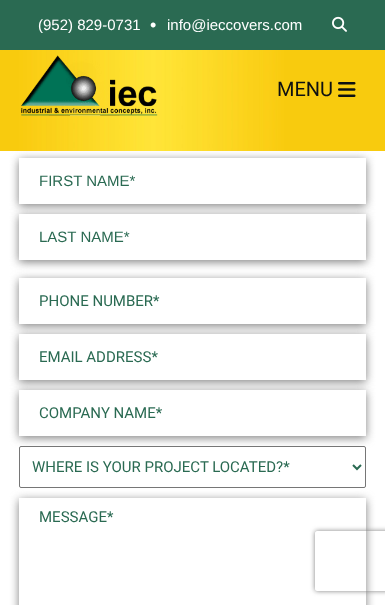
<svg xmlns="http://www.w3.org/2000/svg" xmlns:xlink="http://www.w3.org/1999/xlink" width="385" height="605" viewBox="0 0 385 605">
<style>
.cls-1{font:15px Liberation Sans;fill:#ffffff}
.cls-2{font:18px Liberation Sans;fill:#ffffff}
.cls-3{font:20px Heebo;fill:#0d1012}
.cls-4{font:15px Liberation Sans;fill:#2a6a52}
.cls-5{font:15px Heebo;fill:#2a6a52}
</style>
<defs>
<clipPath id="clip1"><path d="M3 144H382V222H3ZM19 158H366V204H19Z" clip-rule="evenodd"/></clipPath>
<clipPath id="clip2"><path d="M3 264H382V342H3ZM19 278H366V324H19Z" clip-rule="evenodd"/></clipPath>
<clipPath id="clip3"><path d="M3 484H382V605H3ZM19 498H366V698H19Z" clip-rule="evenodd"/></clipPath>
<clipPath id="clip4"><path d="M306 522H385V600H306ZM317 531H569C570 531 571 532 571 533V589C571 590 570 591 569 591H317C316 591 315 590 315 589V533C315 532 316 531 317 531Z" clip-rule="evenodd"/></clipPath>
</defs>
<rect width="100%" height="100%" fill="#ffffff"/>
<rect fill="#2a6a52" x="0" y="0" width="385" height="50"/>
<image xlink:href="image0.png" x="332" y="16" width="15" height="16"/>
<g clip-path="url(#clip1)">
<rect fill="#808080" filter="blur(5px)" x="19" y="160" width="347" height="46"/>
</g>
<image xlink:href="image1.png" x="0" y="50" width="385" height="101"/>
<image xlink:href="image2.png" x="21" y="55" width="137" height="61"/>
<image xlink:href="image3.png" x="338" y="82" width="18" height="15"/>
<rect fill="#808080" filter="blur(5px)" x="19" y="216" width="347" height="46"/>
<rect fill="#ffffff" x="19" y="214" width="347" height="46"/>
<g clip-path="url(#clip2)">
<rect fill="#808080" filter="blur(5px)" x="19" y="280" width="347" height="46"/>
</g>
<rect fill="#808080" filter="blur(5px)" x="19" y="336" width="347" height="46"/>
<rect fill="#ffffff" x="19" y="334" width="347" height="46"/>
<rect fill="#808080" filter="blur(5px)" x="19" y="392" width="347" height="46"/>
<rect fill="#ffffff" x="19" y="390" width="347" height="46"/>
<rect fill="#ffffff" stroke="#767676" x="19.5" y="446.5" width="346" height="41" rx="1.5"/>
<path fill="none" stroke="#2a6a52" stroke-width="2" d="M353 465L357 469L361 465"/>
<g clip-path="url(#clip3)">
<rect fill="#808080" filter="blur(5px)" x="19" y="500" width="347" height="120"/>
</g>
<g clip-path="url(#clip4)">
<rect fill="#808080" filter="blur(2.5px)" x="315" y="531" width="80" height="60" rx="2"/>
</g>
<text class="cls-1" x="38" y="30">(952) 829-0731</text>
<text class="cls-2" x="150" y="31">•</text>
<text class="cls-1" x="167" y="30">info@ieccovers.com</text>
<text class="cls-3" x="277" y="96">MENU</text>
<text class="cls-4" x="39" y="186">FIRST NAME*</text>
<text class="cls-4" x="39" y="242">LAST NAME*</text>
<text class="cls-5" x="39" y="306">PHONE NUMBER*</text>
<text class="cls-5" x="39" y="362">EMAIL ADDRESS*</text>
<text class="cls-5" x="39" y="418">COMPANY NAME*</text>
<text class="cls-5" x="32" y="472">WHERE IS YOUR PROJECT LOCATED?*</text>
<text class="cls-5" x="39" y="522">MESSAGE*</text>
</svg>
